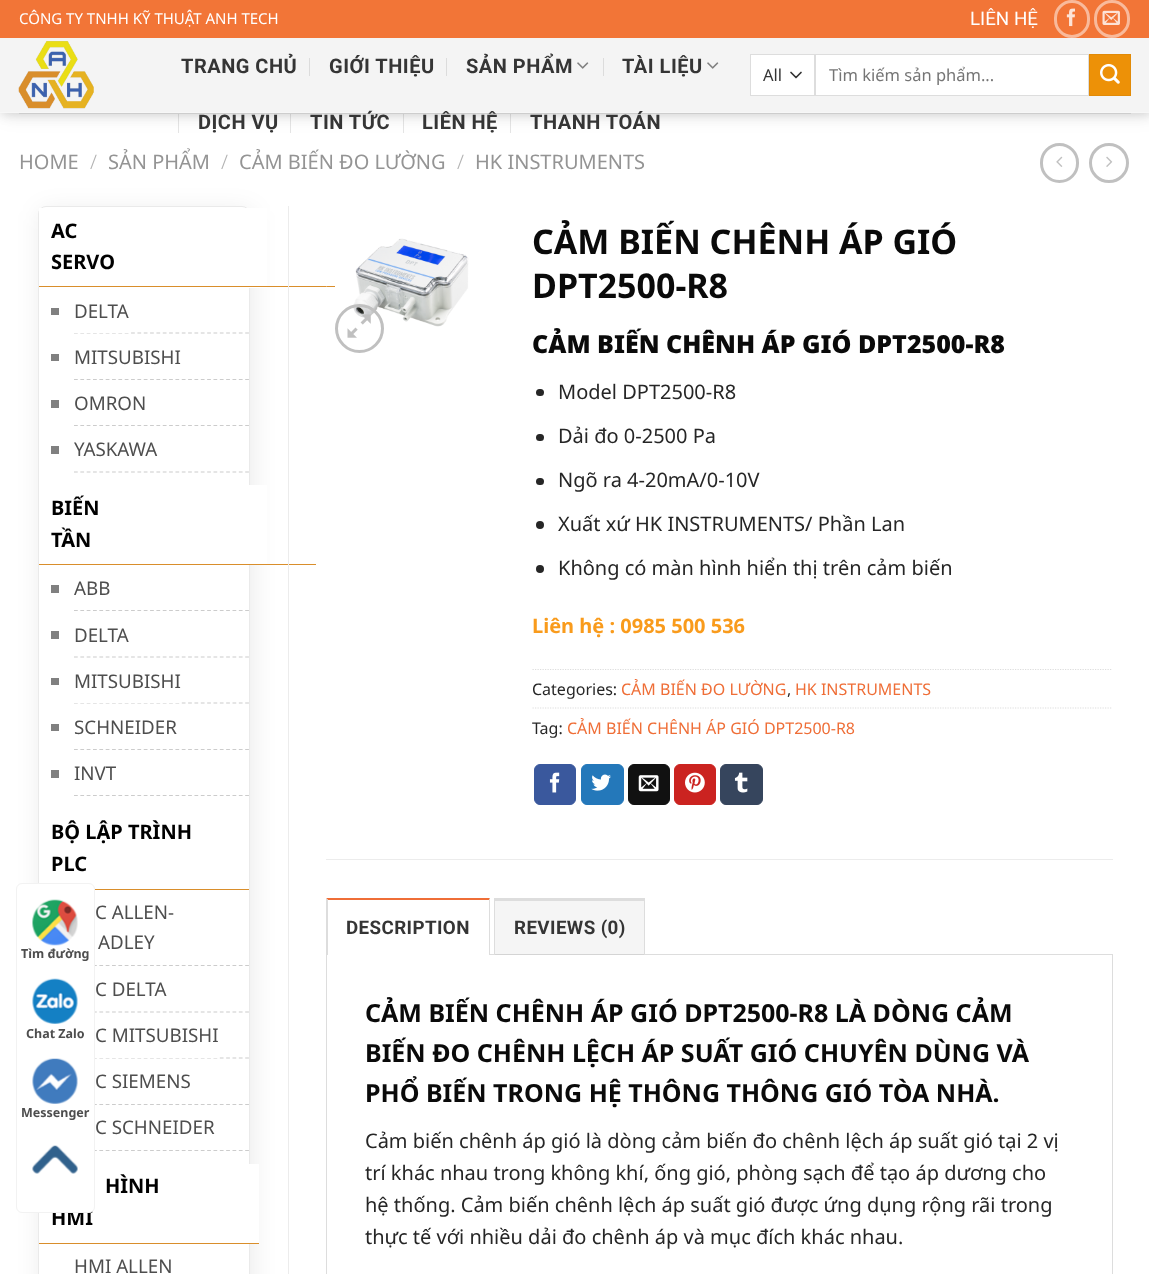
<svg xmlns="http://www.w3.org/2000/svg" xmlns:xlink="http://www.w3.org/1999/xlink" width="1149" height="1274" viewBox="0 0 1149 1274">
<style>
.cls-1{font:15px Noto Sans;fill:#ffffff}
.cls-2{font:18.75px Roboto;fill:#ffffff}
.cls-3{font:bold 20px Roboto;letter-spacing:0.5px;fill:#353535}
.cls-4{font:16.5px Noto Sans;fill:#353535}
.cls-5{font:16.5px Noto Sans;fill:#757575}
.cls-6{font:20px Noto Sans;fill:#949494}
.cls-7{font:300 20px Noto Sans;fill:#b2b2b2}
.cls-8{font:bold 20px Noto Sans;fill:#000000}
.cls-9{font:18.75px Noto Sans;fill:#4e4e4e}
.cls-10{font:bold 34px Noto Sans;fill:#0a0a0a}
.cls-11{font:900 25px Noto Sans;fill:#0a0a0a}
.cls-12{font:20px Noto Sans;fill:#262626}
.cls-13{font:bold 20px Noto Sans;fill:#f99b1c}
.cls-14{font:16px Noto Sans;fill:#262626}
.cls-15{font:16px Noto Sans;fill:#ef6e37}
.cls-16{font:bold 18.75px Roboto;letter-spacing:0.4px;fill:#353535}
.cls-17{font:bold 25px Noto Sans;fill:#0a0a0a}
.cls-18{font:bold 12.5px Noto Sans;fill:#4e4e4e}
</style>
<defs>
<clipPath id="clip1"><path d="M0 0H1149V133H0ZM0 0H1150V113H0Z" clip-rule="evenodd"/></clipPath>
<clipPath id="clip2"><path d="M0 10H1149V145H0ZM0 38H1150V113H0Z" clip-rule="evenodd"/></clipPath>
</defs>
<rect width="100%" height="100%" fill="#ffffff"/>
<g clip-path="url(#clip1)">
<rect fill="#000000" fill-opacity="0.15" filter="blur(6px)" x="1" y="1" width="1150" height="113"/>
</g>
<rect fill="#f2f2f2" fill-opacity="0.58" x="0" y="38" width="1149" height="75"/>
<rect fill="#f2f2f2" fill-opacity="0.58" x="0" y="38" width="1149" height="74"/>
<rect fill="none" stroke="#c0c0c0" stroke-width="3" x="1041.5" y="144.5" width="36" height="37" rx="18"/>
<circle fill="none" stroke="#c0c0c0" stroke-width="3" cx="1109" cy="163" r="18.5"/>
<g clip-path="url(#clip2)">
<rect fill="#000000" fill-opacity="0.08" filter="blur(9.5px)" x="3" y="40" width="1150" height="75"/>
</g>
<rect fill="#f27537" x="0" y="0" width="1149" height="38"/>
<rect fill="none" stroke="#f9ba9b" stroke-width="3" x="1055.5" y="1.5" width="33" height="35" rx="16.5"/>
<image xlink:href="image0.png" x="1066" y="8" width="9" height="19"/>
<rect fill="none" stroke="#f9ba9b" stroke-width="3" x="1095.5" y="1.5" width="33" height="35" rx="16.5"/>
<image xlink:href="image1.png" x="1102" y="10" width="18" height="15"/>
<image xlink:href="image2.png" x="18" y="41" width="76" height="68"/>
<rect fill="#dcdcdc" x="309" y="58" width="1" height="18"/>
<rect fill="#dcdcdc" x="446" y="58" width="1" height="18"/>
<image xlink:href="image3.png" x="577" y="62" width="12" height="7"/>
<rect fill="#dcdcdc" x="603" y="58" width="1" height="18"/>
<image xlink:href="image3.png" x="707" y="62" width="12" height="7"/>
<rect fill="#000000" fill-opacity="0.1" x="178" y="114" width="1" height="19"/>
<rect fill="#000000" fill-opacity="0.1" x="290" y="114" width="1" height="19"/>
<rect fill="#000000" fill-opacity="0.1" x="403" y="114" width="1" height="19"/>
<rect fill="#000000" fill-opacity="0.1" x="510" y="114" width="1" height="19"/>
<rect fill="#ffffff" x="751" y="55" width="63" height="40"/>
<path fill="none" stroke="#333333" stroke-width="1.7" stroke-linecap="round" stroke-linejoin="round" d="M791 72.5L796 77.5L801 72.5"/>
<rect fill="none" stroke="#dddddd" x="750.5" y="54.5" width="64" height="41"/>
<rect fill="#ffffff" stroke="#dddddd" x="815.5" y="54.5" width="273" height="41"/>
<rect fill="#ed9107" stroke="#e18a07" x="1089.5" y="54.5" width="41" height="41"/>
<image xlink:href="image4.png" x="1100" y="63" width="20" height="21"/>
<rect fill="#262626" fill-opacity="0.1" x="19" y="113" width="1112" height="1"/>
<image xlink:href="image5.png" x="1056" y="156" width="7" height="11"/>
<image xlink:href="image6.png" x="1106" y="156" width="7" height="11"/>
<rect fill="#000000" fill-opacity="0.08" filter="blur(12.5px)" x="40" y="210" width="213" height="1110" rx="8"/>
<rect fill="#ffffff" stroke="#eaeaea" x="38.5" y="206.5" width="211" height="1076" rx="7.5"/>
<rect fill="#ffffff" x="39" y="208" width="228" height="80"/>
<rect fill="#d98e2b" x="39" y="286" width="296" height="1"/>
<path fill="none" stroke="#cccccc" stroke-width="1.2" stroke-dasharray="3.75 2.59" d="M74 333H249"/>
<rect fill="#808080" x="51" y="308" width="8" height="7"/>
<rect fill="#ffffff" x="74" y="332" width="55" height="1"/>
<path fill="none" stroke="#cccccc" stroke-width="1.2" stroke-dasharray="3.75 2.59" d="M74 379.5H249"/>
<rect fill="#808080" x="51" y="354" width="8" height="7"/>
<rect fill="#ffffff" x="74" y="378" width="105" height="1"/>
<path fill="none" stroke="#cccccc" stroke-width="1.2" stroke-dasharray="3.75 2.59" d="M74 425.5H249"/>
<rect fill="#808080" x="51" y="400" width="8" height="8"/>
<rect fill="#ffffff" x="74" y="380" width="72" height="45"/>
<path fill="none" stroke="#cccccc" stroke-width="1.2" stroke-dasharray="3.75 2.59" d="M74 472H249"/>
<rect fill="#808080" x="51" y="446" width="8" height="8"/>
<rect fill="#ffffff" x="74" y="426" width="84" height="1"/>
<rect fill="#ffffff" x="249" y="485" width="18" height="79"/>
<rect fill="#d98e2b" x="39" y="564" width="277" height="1"/>
<path fill="none" stroke="#cccccc" stroke-width="1.2" stroke-dasharray="3.75 2.59" d="M74 610.5H249"/>
<rect fill="#808080" x="51" y="585" width="8" height="8"/>
<rect fill="#ffffff" x="74" y="609" width="35" height="1"/>
<path fill="none" stroke="#cccccc" stroke-width="1.2" stroke-dasharray="3.75 2.59" d="M74 657H249"/>
<rect fill="#808080" x="51" y="631" width="8" height="8"/>
<rect fill="#ffffff" x="74" y="611" width="54" height="1"/>
<path fill="none" stroke="#cccccc" stroke-width="1.2" stroke-dasharray="3.75 2.59" d="M74 703H249"/>
<rect fill="#808080" x="51" y="678" width="8" height="7"/>
<rect fill="#ffffff" x="74" y="702" width="106" height="1"/>
<path fill="none" stroke="#cccccc" stroke-width="1.2" stroke-dasharray="3.75 2.59" d="M74 749.5H249"/>
<rect fill="#808080" x="51" y="724" width="8" height="7"/>
<rect fill="#ffffff" x="74" y="748" width="102" height="1"/>
<path fill="none" stroke="#cccccc" stroke-width="1.2" stroke-dasharray="3.75 2.59" d="M74 795.5H249"/>
<rect fill="#808080" x="51" y="770" width="8" height="8"/>
<rect fill="#ffffff" x="74" y="750" width="42" height="45"/>
<rect fill="#d98e2b" x="95" y="889" width="154" height="1"/>
<path fill="none" stroke="#cccccc" stroke-width="1.2" stroke-dasharray="3.75 2.59" d="M74 965.5H249"/>
<rect fill="#ffffff" x="95" y="964" width="154" height="1"/>
<path fill="none" stroke="#cccccc" stroke-width="1.2" stroke-dasharray="3.75 2.59" d="M74 1012H249"/>
<rect fill="#ffffff" x="95" y="966" width="71" height="1"/>
<path fill="none" stroke="#cccccc" stroke-width="1.2" stroke-dasharray="3.75 2.59" d="M74 1058H249"/>
<rect fill="#ffffff" x="95" y="1057" width="123" height="1"/>
<path fill="none" stroke="#cccccc" stroke-width="1.2" stroke-dasharray="3.75 2.59" d="M74 1104.5H249"/>
<rect fill="#ffffff" x="95" y="1103" width="95" height="1"/>
<path fill="none" stroke="#cccccc" stroke-width="1.2" stroke-dasharray="3.75 2.59" d="M74 1150.5H249"/>
<rect fill="#ffffff" x="95" y="1105" width="116" height="45"/>
<rect fill="#ffffff" x="249" y="1164" width="10" height="79"/>
<rect fill="#d98e2b" x="39" y="1243" width="220" height="1"/>
<rect fill="#ececec" x="288" y="206" width="1" height="1068"/>
<image xlink:href="image7.png" x="326" y="238" width="143" height="89"/>
<circle fill="none" stroke="#c0c0c0" stroke-width="3" cx="359.5" cy="328.5" r="23"/>
<image xlink:href="image8.png" x="347" y="314" width="24" height="24"/>
<rect fill="#262626" x="536" y="389" width="8" height="7" rx="3.5"/>
<rect fill="#262626" x="536" y="434" width="8" height="7" rx="3.5"/>
<rect fill="#262626" x="536" y="478" width="8" height="7" rx="3.5"/>
<circle fill="#262626" cx="540" cy="525" r="4"/>
<circle fill="#262626" cx="540" cy="569" r="4"/>
<path fill="none" stroke="#dddddd" stroke-width="1.2" stroke-dasharray="1.25 1.25" d="M532.5 669.5H1112.5"/>
<path fill="none" stroke="#dddddd" stroke-width="1.2" stroke-dasharray="1.25 1.25" d="M532.5 708H1112.5"/>
<rect fill="#3a589d" stroke="#3a589d" x="534.5" y="764.5" width="41" height="40" rx="5.5"/>
<image xlink:href="image9.png" x="549" y="772" width="11" height="21"/>
<rect fill="#2478ba" stroke="#2478ba" x="581.5" y="764.5" width="42" height="40" rx="5.5"/>
<image xlink:href="image10.png" x="591" y="774" width="20" height="17"/>
<rect fill="#111111" stroke="#111111" x="628.5" y="764.5" width="41" height="40" rx="5.5"/>
<image xlink:href="image11.png" x="638" y="775" width="21" height="17"/>
<rect fill="#cb2320" stroke="#cb2320" x="674.5" y="764.5" width="41" height="40" rx="5.5"/>
<image xlink:href="image12.png" x="685" y="772" width="20" height="21"/>
<rect fill="#36455d" stroke="#36455d" x="720.5" y="764.5" width="42" height="40" rx="5.5"/>
<image xlink:href="image13.png" x="734" y="772" width="14" height="21"/>
<rect fill="#ececec" x="326" y="859" width="787" height="1"/>
<rect fill="none" stroke="#dddddd" x="326.5" y="954.5" width="786" height="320"/>
<rect fill="#ffffff" x="326" y="954" width="164" height="1"/>
<path fill="#ef6e37" d="M326 898H490L489 900H328Z"/>
<path fill="#dddddd" d="M490 898V955H489V900Z"/>
<path fill="#dddddd" d="M326 955V898L328 900V955Z"/>
<rect fill="#000000" fill-opacity="0.04" x="495" y="901" width="149" height="54"/>
<rect fill="#dddddd" x="494" y="898" width="151" height="3"/>
<rect fill="#dddddd" x="644" y="898" width="1" height="57"/>
<rect fill="#dddddd" x="494" y="898" width="1" height="57"/>
<text class="cls-1" x="19" y="24">CÔNG TY TNHH KỸ THUẬT ANH TECH</text>
<text class="cls-2" x="970" y="25">LIÊN HỆ</text>
<text class="cls-3" x="181" y="73">TRANG CHỦ</text>
<text class="cls-3" x="329" y="73">GIỚI THIỆU</text>
<text class="cls-3" x="466" y="73">SẢN PHẨM</text>
<text class="cls-3" x="622" y="73">TÀI LIỆU</text>
<text class="cls-3" x="198" y="129">DỊCH VỤ</text>
<text class="cls-3" x="310" y="129">TIN TỨC</text>
<text class="cls-3" x="422" y="129">LIÊN HỆ</text>
<text class="cls-3" x="530" y="129">THANH TOÁN</text>
<text class="cls-4" x="763" y="81">All</text>
<text class="cls-5" x="829" y="81">Tìm kiếm sản phẩm...</text>
<text class="cls-6" x="19" y="169">HOME</text>
<text class="cls-7" x="90" y="169">/</text>
<text class="cls-6" x="108" y="169">SẢN PHẨM</text>
<text class="cls-7" x="221" y="169">/</text>
<text class="cls-6" x="239" y="169">CẢM BIẾN ĐO LƯỜNG</text>
<text class="cls-7" x="457" y="169">/</text>
<text class="cls-6" x="475" y="169">HK INSTRUMENTS</text>
<text class="cls-8"><tspan x="51" y="238">AC</tspan><tspan x="51" y="269">SERVO</tspan></text>
<text class="cls-9" x="74" y="318">DELTA</text>
<text class="cls-9" x="74" y="364">MITSUBISHI</text>
<text class="cls-9" x="74" y="410">OMRON</text>
<text class="cls-9" x="74" y="456">YASKAWA</text>
<text class="cls-8"><tspan x="51" y="515">BIẾN</tspan><tspan x="51" y="547">TẦN</tspan></text>
<text class="cls-9" x="74" y="595">ABB</text>
<text class="cls-9" x="74" y="642">DELTA</text>
<text class="cls-9" x="74" y="688">MITSUBISHI</text>
<text class="cls-9" x="74" y="734">SCHNEIDER</text>
<text class="cls-9" x="74" y="780">INVT</text>
<text class="cls-8"><tspan x="51" y="839">BỘ LẬP TRÌNH</tspan><tspan x="51" y="871">PLC</tspan></text>
<text class="cls-9" x="95" y="919">C ALLEN-</text>
<text class="cls-9" x="98" y="949">ADLEY</text>
<text class="cls-9" x="95" y="996">C DELTA</text>
<text class="cls-9" x="95" y="1042">C MITSUBISHI</text>
<text class="cls-9" x="95" y="1088">C SIEMENS</text>
<text class="cls-9" x="95" y="1134">C SCHNEIDER</text>
<text class="cls-8" x="105" y="1193">HÌNH</text>
<text class="cls-8" x="51" y="1225">HMI</text>
<text class="cls-9" x="74" y="1273">HMI ALLEN</text>
<text class="cls-10"><tspan x="532" y="254">CẢM BIẾN CHÊNH ÁP GIÓ</tspan><tspan x="532" y="298">DPT2500-R8</tspan></text>
<text class="cls-11" x="532" y="353">CẢM BIẾN CHÊNH ÁP GIÓ DPT2500-R8</text>
<text class="cls-12" x="558" y="399">Model DPT2500-R8</text>
<text class="cls-12" x="558" y="443">Dải đo 0-2500 Pa</text>
<text class="cls-12" x="558" y="487">Ngõ ra 4-20mA/0-10V</text>
<text class="cls-12" x="558" y="531">Xuất xứ HK INSTRUMENTS/ Phần Lan</text>
<text class="cls-12" x="558" y="575">Không có màn hình hiển thị trên cảm biến</text>
<text class="cls-13" x="532" y="633">Liên hệ : 0985 500 536</text>
<text class="cls-14" x="532" y="695">Categories:</text>
<text class="cls-15" x="621" y="695">CẢM BIẾN ĐO LƯỜNG</text>
<text class="cls-14" x="787" y="695">,</text>
<text class="cls-15" x="795" y="695">HK INSTRUMENTS</text>
<text class="cls-14" x="532" y="734">Tag:</text>
<text class="cls-15" x="567" y="734">CẢM BIẾN CHÊNH ÁP GIÓ DPT2500-R8</text>
<text class="cls-16" x="346" y="934">DESCRIPTION</text>
<text class="cls-16" x="514" y="934">REVIEWS (0)</text>
<text class="cls-17"><tspan x="365" y="1022">CẢM BIẾN CHÊNH ÁP GIÓ DPT2500-R8 LÀ DÒNG CẢM</tspan><tspan x="365" y="1062">BIẾN ĐO CHÊNH LỆCH ÁP SUẤT GIÓ CHUYÊN DÙNG VÀ</tspan><tspan x="365" y="1102">PHỔ BIẾN TRONG HỆ THÔNG THÔNG GIÓ TÒA NHÀ.</tspan></text>
<text class="cls-12"><tspan x="365" y="1148">Cảm biến chênh áp gió là dòng cảm biến đo chênh lệch áp suất gió tại 2 vị</tspan><tspan x="365" y="1180">trí khác nhau trong không khí, ống gió, phòng sạch để tạo áp dương cho</tspan><tspan x="365" y="1212">hệ thống. Cảm biến chênh lệch áp suất gió được ứng dụng rộng rãi trong</tspan><tspan x="365" y="1244">thực tế với nhiều dải đo chênh áp và mục đích khác nhau.</tspan></text>
<rect fill="#ffffff" stroke="#f2f2f2" x="16.5" y="883.5" width="78" height="329" rx="5.5"/>
<image xlink:href="image14.png" x="32" y="899" width="46" height="47"/>
<text class="cls-18" x="21" y="958">Tìm đường</text>
<image xlink:href="image15.png" x="32" y="978" width="46" height="46"/>
<text class="cls-18" x="26" y="1038">Chat Zalo</text>
<image xlink:href="image16.png" x="32" y="1058" width="46" height="46"/>
<text class="cls-18" x="21" y="1117">Messenger</text>
<image xlink:href="image17.png" x="32" y="1145" width="46" height="29"/>
</svg>
